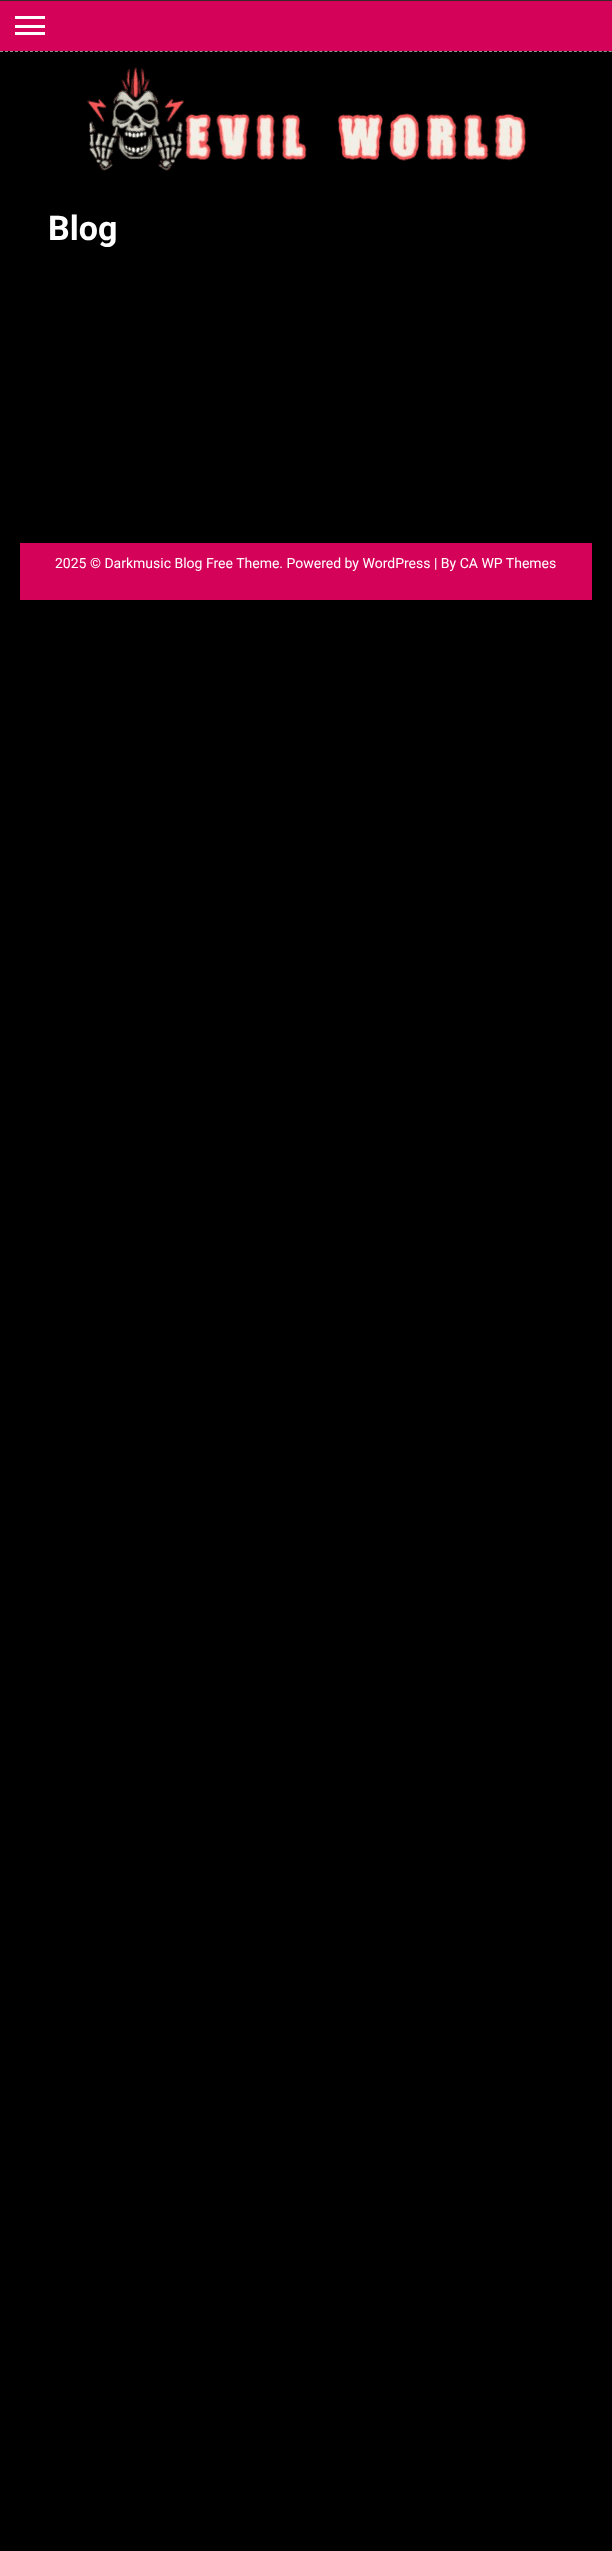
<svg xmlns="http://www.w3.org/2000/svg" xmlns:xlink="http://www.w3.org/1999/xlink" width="612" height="2551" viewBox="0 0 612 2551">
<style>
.cls-1{font:bold 34px Roboto;fill:#ffffff}
.cls-2{font:14px Roboto;fill:#ffffff}
</style>
<rect width="100%" height="100%" fill="#000000"/>
<rect fill="#d50259" x="0" y="1" width="612" height="50"/>
<rect fill="#382727" x="0" y="0" width="612" height="1"/>
<rect fill="#ffffff" x="15" y="16" width="30" height="3"/>
<rect fill="#ffffff" x="15" y="25" width="30" height="3"/>
<rect fill="#ffffff" x="15" y="32" width="30" height="3"/>
<path fill="none" stroke="#939393" stroke-dasharray="3 1.99" d="M0 51.5H612"/>
<image xlink:href="image0.png" x="87" y="67" width="439" height="104"/>
<rect fill="#d50259" x="20" y="543" width="572" height="57"/>
<text class="cls-1" x="48" y="240">Blog</text>
<text class="cls-2" x="55" y="568">2025 © Darkmusic Blog Free Theme. Powered by WordPress | By CA WP Themes</text>
</svg>
